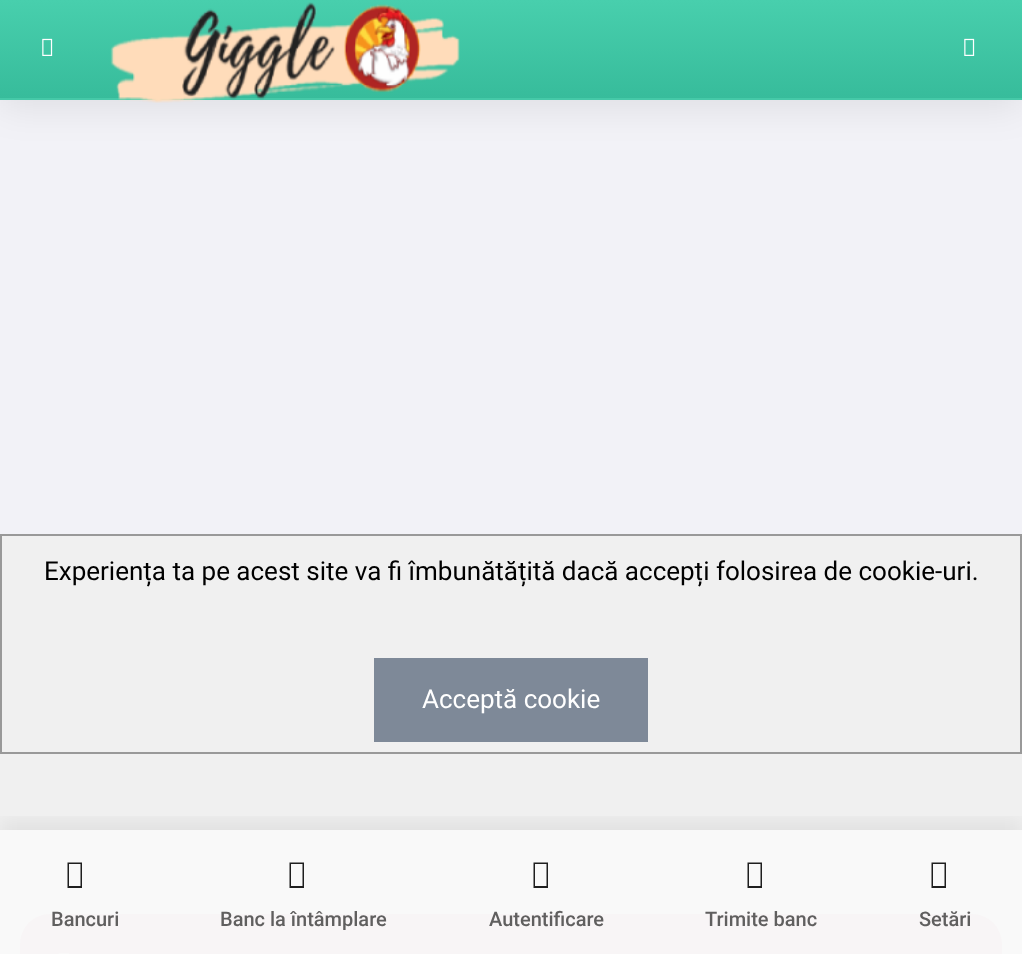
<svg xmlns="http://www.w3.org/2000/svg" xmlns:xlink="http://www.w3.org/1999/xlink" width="1022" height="954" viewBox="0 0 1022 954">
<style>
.cls-1{font:26px Roboto;fill:#000000}
.cls-2{font:26px Roboto;fill:#ffffff}
.cls-3{font:500 20px Roboto;fill:#605f5f}
</style>
<defs>
<linearGradient id="g1" gradientUnits="userSpaceOnUse" x1="511" y1="0" x2="511" y2="98"><stop offset="0" stop-color="#48cfad"/><stop offset="1" stop-color="#37bc9b"/></linearGradient>
<clipPath id="clip1"><rect x="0" y="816" width="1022" height="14"/></clipPath>
</defs>
<rect width="100%" height="100%" fill="#f0f0f0"/>
<rect fill="#f9f9f9" x="0" y="830" width="1022" height="124"/>
<rect fill="none" stroke="#999999" stroke-width="2" x="1" y="535" width="1020" height="218"/>
<rect fill="#7e8998" x="374" y="658" width="274" height="84"/>
<rect fill="#f2f2f7" x="0" y="100" width="1022" height="434"/>
<rect fill="#000000" fill-opacity="0.08" filter="blur(18px)" x="0" y="8" width="1022" height="100"/>
<rect fill="url(#g1)" x="0" y="0" width="1022" height="98"/>
<rect fill="#46c9a8" x="0" y="98" width="1022" height="2"/>
<image xlink:href="image0.png" x="42" y="38" width="11" height="18"/>
<image xlink:href="image1.png" x="110" y="2" width="350" height="101"/>
<image xlink:href="image0.png" x="964" y="38" width="11" height="18"/>
<rect fill="#f8f5f6" x="20" y="914" width="982" height="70" rx="30"/>
<image xlink:href="image2.png" x="58" y="953" width="12" height="1"/>
<g clip-path="url(#clip1)">
<rect fill="#000000" fill-opacity="0.06" filter="blur(10px)" x="0" y="820" width="1022" height="124"/>
</g>
<path fill="#1f1f1f" d="M67.5 888V862.5H82V888ZM69 886H80.5V864H69Z"/>
<path fill="#1f1f1f" d="M289.5 888V862.5H304V888ZM291 886H302.5V864H291Z"/>
<path fill="#1f1f1f" d="M533.5 888V862.5H548V888ZM535 886H546.5V864H535Z"/>
<path fill="#1f1f1f" d="M747.5 888V862.5H762V888ZM749 886H760.5V864H749Z"/>
<path fill="#1f1f1f" d="M931.5 888V862.5H946V888ZM933 886H944.5V864H933Z"/>
<text class="cls-1" x="44" y="580">Experiența ta pe acest site va fi îmbunătățită dacă accepți folosirea de cookie-uri.</text>
<text class="cls-2" x="422" y="708">Acceptă cookie</text>
<text class="cls-3" x="51" y="926">Bancuri</text>
<text class="cls-3" x="220" y="926">Banc la întâmplare</text>
<text class="cls-3" x="489" y="926">Autentificare</text>
<text class="cls-3" x="705" y="926">Trimite banc</text>
<text class="cls-3" x="919" y="926">Setări</text>
</svg>
